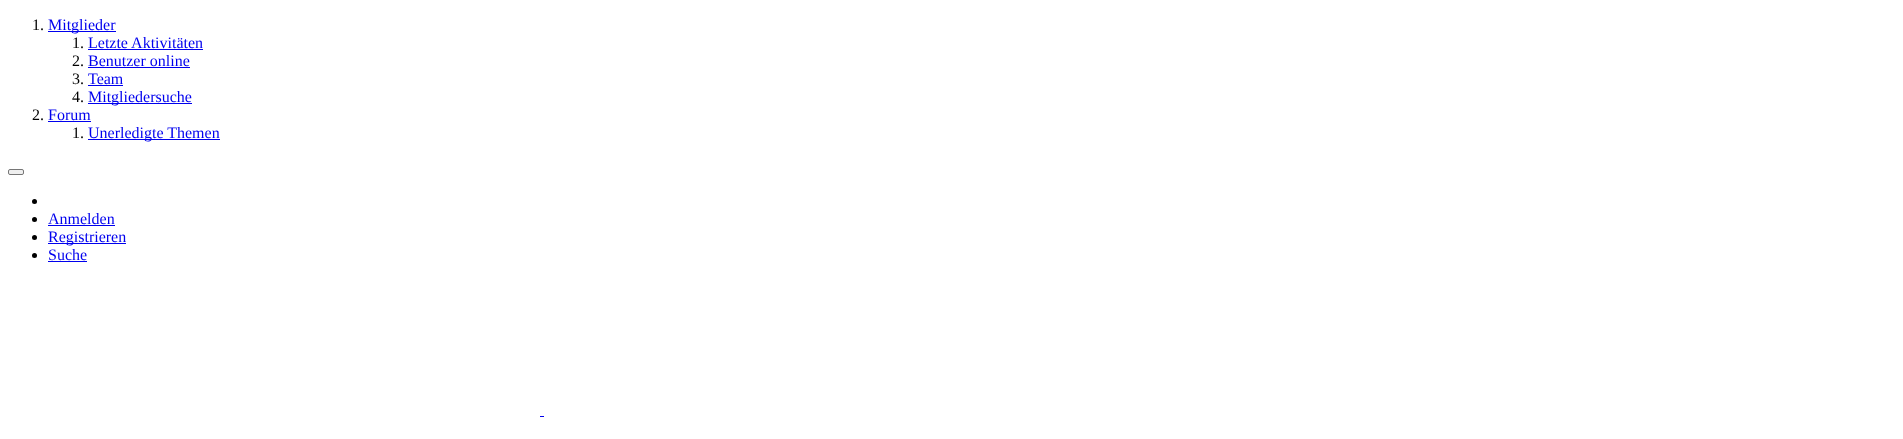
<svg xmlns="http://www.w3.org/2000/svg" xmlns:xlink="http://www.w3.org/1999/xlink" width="1903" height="439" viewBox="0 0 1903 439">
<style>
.cls-1{font:16px Liberation Serif;fill:#000000}
.cls-2{font:16px Liberation Serif;fill:#0000ee}
</style>
<rect width="100%" height="100%" fill="#ffffff"/>
<rect fill="#0000ee" x="48" y="31" width="68" height="1"/>
<rect fill="#0000ee" x="88" y="49" width="115" height="1"/>
<rect fill="#0000ee" x="88" y="67" width="102" height="1"/>
<rect fill="#0000ee" x="88" y="85" width="35" height="1"/>
<rect fill="#0000ee" x="88" y="103" width="104" height="1"/>
<rect fill="#0000ee" x="48" y="121" width="43" height="1"/>
<rect fill="#0000ee" x="88" y="139" width="132" height="1"/>
<rect fill="#efefef" stroke="#767676" x="8.5" y="169.5" width="15" height="5" rx="1.5"/>
<circle fill="#000000" cx="34.5" cy="201.5" r="2.5"/>
<circle fill="#000000" cx="34.5" cy="219.5" r="2.5"/>
<rect fill="#0000ee" x="48" y="225" width="67" height="1"/>
<circle fill="#000000" cx="34.5" cy="237.5" r="2.5"/>
<rect fill="#0000ee" x="48" y="243" width="78" height="1"/>
<circle fill="#000000" cx="34.5" cy="255.5" r="2.5"/>
<rect fill="#0000ee" x="48" y="261" width="39" height="1"/>
<rect fill="#0000ee" x="540" y="416" width="4" height="1"/>
<text class="cls-1" x="32" y="30">1.</text>
<text class="cls-2" x="48" y="30">Mitglieder</text>
<text class="cls-1" x="72" y="48">1.</text>
<text class="cls-2" x="88" y="48">Letzte Aktivitäten</text>
<text class="cls-1" x="72" y="66">2.</text>
<text class="cls-2" x="88" y="66">Benutzer online</text>
<text class="cls-1" x="72" y="84">3.</text>
<text class="cls-2" x="88" y="84">Team</text>
<text class="cls-1" x="72" y="102">4.</text>
<text class="cls-2" x="88" y="102">Mitgliedersuche</text>
<text class="cls-1" x="32" y="120">2.</text>
<text class="cls-2" x="48" y="120">Forum</text>
<text class="cls-1" x="72" y="138">1.</text>
<text class="cls-2" x="88" y="138">Unerledigte Themen</text>
<text class="cls-2"><tspan x="48" y="224">Anmelden</tspan><tspan x="48" y="242">Registrieren</tspan><tspan x="48" y="260">Suche</tspan></text>
</svg>
